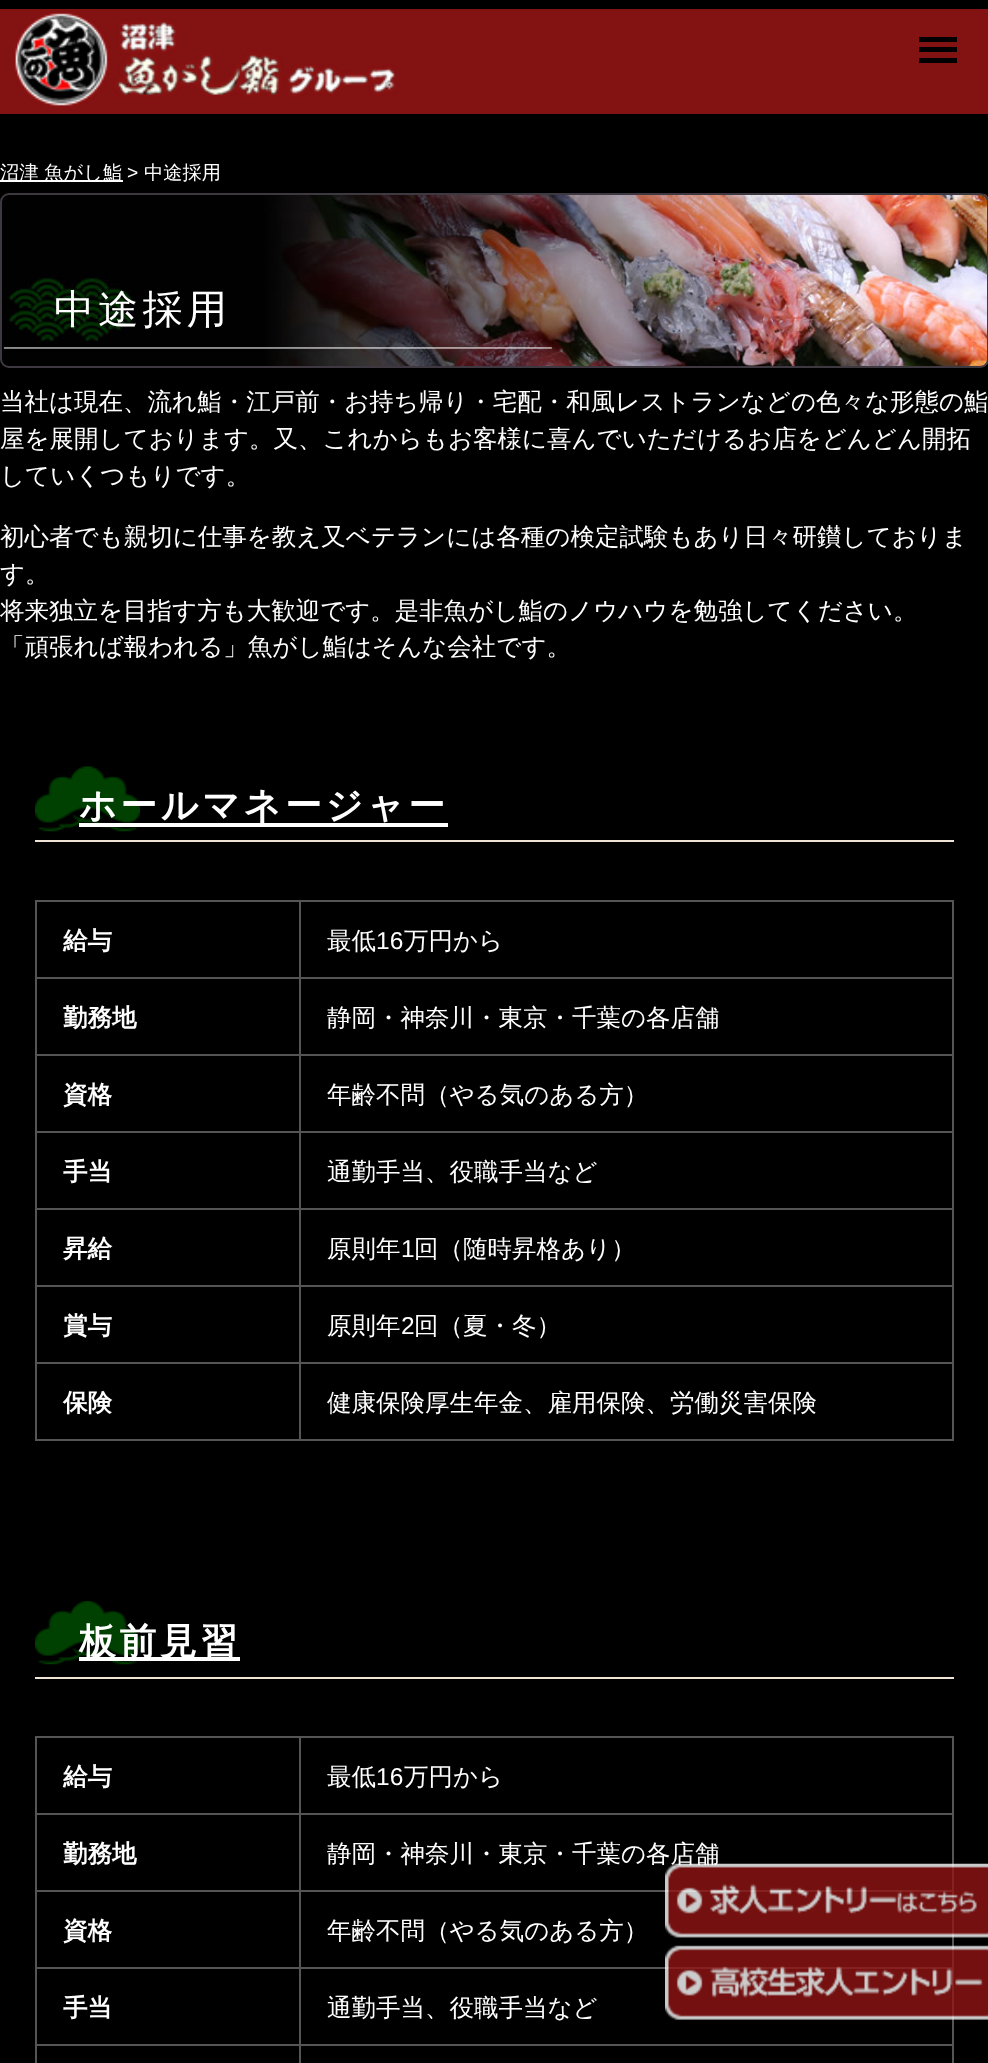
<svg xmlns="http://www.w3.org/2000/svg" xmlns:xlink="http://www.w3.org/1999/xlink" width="988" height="2063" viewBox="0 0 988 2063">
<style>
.cls-1{font:500 19.25px WenQuanYi Zen Hei;fill:#ffffff}
.cls-2{font:19.25px Liberation Sans;fill:#ffffff}
.cls-3{font:500 40.25px WenQuanYi Zen Hei;letter-spacing:4px;fill:#ffffff}
.cls-4{font:500 24.5px WenQuanYi Zen Hei;fill:#ffffff}
.cls-5{font:bold 36.75px WenQuanYi Zen Hei;letter-spacing:3.75px;fill:#ffffff}
.cls-6{font:bold 24.5px WenQuanYi Zen Hei;fill:#ffffff}
.cls-7{font:24.5px Liberation Sans;fill:#ffffff}
</style>
<rect width="100%" height="100%" fill="#000000"/>
<rect fill="#831212" x="0" y="9" width="988" height="105"/>
<rect fill="#000000" x="919" y="37" width="38" height="5"/>
<rect fill="#000000" x="919" y="47" width="38" height="5"/>
<rect fill="#000000" x="919" y="58" width="38" height="5"/>
<image xlink:href="image0.png" x="14" y="12" width="382" height="95"/>
<rect fill="#ffffff" x="0" y="180" width="123" height="2"/>
<image xlink:href="image1.png" x="2" y="194" width="986" height="174"/>
<rect fill="none" stroke="#3e3940" stroke-width="2" x="1" y="194" width="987" height="173" rx="8"/>
<image xlink:href="image2.png" x="35" y="766" width="105" height="66"/>
<rect fill="#f0e4d6" x="35" y="840" width="919" height="2"/>
<rect fill="#ffffff" x="79" y="823" width="369" height="4"/>
<rect fill="#555555" x="952" y="900" width="2" height="540"/>
<rect fill="#555555" x="35" y="1439" width="919" height="2"/>
<rect fill="#555555" x="35" y="900" width="2" height="540"/>
<rect fill="#555555" x="37" y="900" width="915" height="2"/>
<rect fill="#555555" x="299" y="900" width="2" height="77"/>
<rect fill="#555555" x="37" y="977" width="915" height="2"/>
<rect fill="#555555" x="299" y="977" width="2" height="77"/>
<rect fill="#555555" x="37" y="1054" width="915" height="2"/>
<rect fill="#555555" x="299" y="1054" width="2" height="77"/>
<rect fill="#555555" x="37" y="1131" width="915" height="2"/>
<rect fill="#555555" x="299" y="1131" width="2" height="77"/>
<rect fill="#555555" x="37" y="1208" width="915" height="2"/>
<rect fill="#555555" x="299" y="1208" width="2" height="77"/>
<rect fill="#555555" x="37" y="1285" width="915" height="2"/>
<rect fill="#555555" x="299" y="1285" width="2" height="77"/>
<rect fill="#555555" x="37" y="1362" width="915" height="2"/>
<rect fill="#555555" x="299" y="1362" width="2" height="77"/>
<image xlink:href="image3.png" x="35" y="1601" width="105" height="64"/>
<rect fill="#f0e4d6" x="35" y="1677" width="919" height="2"/>
<rect fill="#ffffff" x="79" y="1657" width="161" height="4"/>
<rect fill="#555555" x="952" y="1736" width="2" height="327"/>
<rect fill="#555555" x="35" y="1736" width="2" height="327"/>
<rect fill="#555555" x="37" y="1736" width="915" height="2"/>
<rect fill="#555555" x="299" y="1736" width="2" height="77"/>
<rect fill="#555555" x="37" y="1813" width="915" height="2"/>
<rect fill="#555555" x="299" y="1813" width="2" height="77"/>
<rect fill="#555555" x="37" y="1890" width="915" height="2"/>
<rect fill="#555555" x="299" y="1890" width="2" height="77"/>
<rect fill="#555555" x="37" y="1967" width="915" height="2"/>
<rect fill="#555555" x="299" y="1967" width="2" height="77"/>
<rect fill="#555555" x="37" y="2044" width="915" height="2"/>
<rect fill="#555555" x="299" y="2044" width="2" height="19"/>
<image xlink:href="image5.png" x="665" y="1945" width="323" height="75"/>
<text class="cls-1" x="0" y="179">沼津 魚がし鮨</text>
<text class="cls-2" x="127" y="179">&gt;</text>
<text class="cls-1" x="144" y="179">中途採用</text>
<text class="cls-3" x="54" y="323">中途採用</text>
<text class="cls-4"><tspan x="0" y="410">当社は現在、流れ鮨・江戸前・お持ち帰り・宅配・和風レストランなどの色々な形態の鮨</tspan><tspan x="0" y="447">屋を展開しております。又、これからもお客様に喜んでいただけるお店をどんどん開拓</tspan><tspan x="0" y="484">していくつもりです。</tspan></text>
<text class="cls-4"><tspan x="0" y="545">初心者でも親切に仕事を教え又ベテランには各種の検定試験もあり日々研鑚しておりま</tspan><tspan x="0" y="582">す。</tspan><tspan x="0" y="619">将来独立を目指す方も大歓迎です。是非魚がし鮨のノウハウを勉強してください。</tspan><tspan x="0" y="655">「頑張れば報われる」魚がし鮨はそんな会社です。</tspan></text>
<text class="cls-5" x="79" y="818">ホールマネージャー</text>
<text class="cls-6" x="63" y="949">給与</text>
<text class="cls-4" x="327" y="949">最低</text>
<text class="cls-7" x="376" y="949">16</text>
<text class="cls-4" x="404" y="949">万円から</text>
<text class="cls-6" x="63" y="1026">勤務地</text>
<text class="cls-4" x="327" y="1026">静岡・神奈川・東京・千葉の各店舗</text>
<text class="cls-6" x="63" y="1103">資格</text>
<text class="cls-4" x="327" y="1103">年齢不問（やる気のある方）</text>
<text class="cls-6" x="63" y="1180">手当</text>
<text class="cls-4" x="327" y="1180">通勤手当、役職手当など</text>
<text class="cls-6" x="63" y="1257">昇給</text>
<text class="cls-4" x="327" y="1257">原則年</text>
<text class="cls-7" x="401" y="1257">1</text>
<text class="cls-4" x="414" y="1257">回（随時昇格あり）</text>
<text class="cls-6" x="63" y="1334">賞与</text>
<text class="cls-4" x="327" y="1334">原則年</text>
<text class="cls-7" x="401" y="1334">2</text>
<text class="cls-4" x="414" y="1334">回（夏・冬）</text>
<text class="cls-6" x="63" y="1411">保険</text>
<text class="cls-4" x="327" y="1411">健康保険厚生年金、雇用保険、労働災害保険</text>
<text class="cls-5" x="79" y="1654">板前見習</text>
<text class="cls-6" x="63" y="1785">給与</text>
<text class="cls-4" x="327" y="1785">最低</text>
<text class="cls-7" x="376" y="1785">16</text>
<text class="cls-4" x="404" y="1785">万円から</text>
<text class="cls-6" x="63" y="1862">勤務地</text>
<text class="cls-4" x="327" y="1862">静岡・神奈川・東京・千葉の各店舗</text>
<text class="cls-6" x="63" y="1939">資格</text>
<text class="cls-4" x="327" y="1939">年齢不問（やる気のある方）</text>
<text class="cls-6" x="63" y="2016">手当</text>
<text class="cls-4" x="327" y="2016">通勤手当、役職手当など</text>
<image xlink:href="image4.png" x="665" y="1863" width="323" height="75"/>
</svg>
